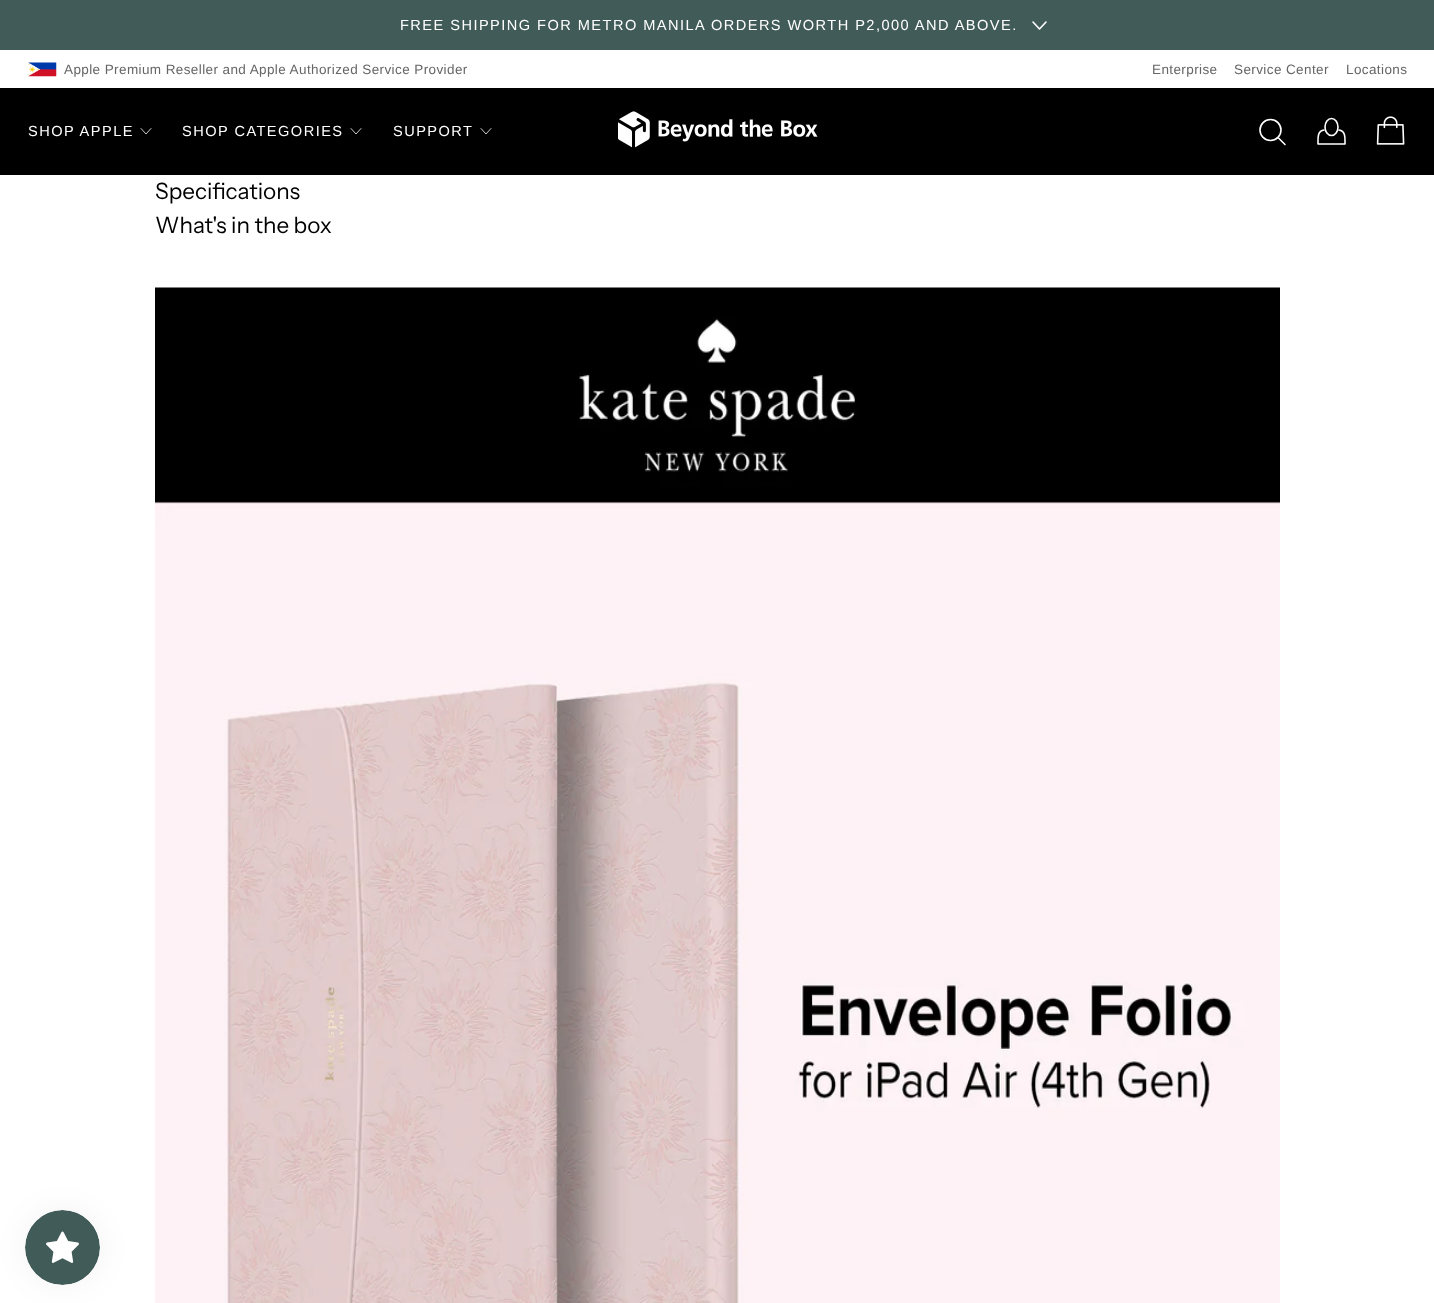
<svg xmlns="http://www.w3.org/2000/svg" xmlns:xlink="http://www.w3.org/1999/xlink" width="1434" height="1303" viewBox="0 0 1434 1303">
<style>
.cls-1{font:14.6px Liberation Sans;letter-spacing:1.45px;fill:#ffffff}
.cls-2{font:13.5px Liberation Sans;letter-spacing:0.4px;fill:#666666}
.cls-3{font:22.5px Instrument Sans;fill:#000000}
</style>
<rect width="100%" height="100%" fill="#ffffff"/>
<rect fill="#415c58" x="0" y="0" width="1434" height="50"/>
<path fill="none" stroke="#ffffff" stroke-width="1.6" stroke-linecap="round" stroke-linejoin="round" d="M1046 22L1039.5 29L1033 22"/>
<image xlink:href="image0.png" x="28" y="62" width="29" height="15"/>
<rect fill="#000000" x="0" y="88" width="1434" height="87"/>
<path fill="none" stroke="#ffffff" stroke-width="0.8" stroke-linecap="round" stroke-linejoin="round" d="M151 128.5L146 134L141 128.5"/>
<path fill="none" stroke="#ffffff" stroke-width="0.8" stroke-linecap="round" stroke-linejoin="round" d="M361 128.5L356 134L351 128.5"/>
<path fill="none" stroke="#ffffff" stroke-width="0.8" stroke-linecap="round" stroke-linejoin="round" d="M491 128.5L486 134L481 128.5"/>
<image xlink:href="image1.png" x="618" y="111" width="200" height="37"/>
<circle fill="none" stroke="#ffffff" stroke-width="1.6" cx="1270.5" cy="130" r="10.5"/>
<path fill="none" stroke="#ffffff" stroke-width="1.6" stroke-linecap="round" stroke-linejoin="round" d="M1278.5 138L1285 144.5"/>
<ellipse fill="none" stroke="#ffffff" stroke-width="1.6" cx="1331.5" cy="127" rx="6.5" ry="8.5"/>
<path fill="none" stroke="#ffffff" stroke-width="1.6" stroke-linecap="round" stroke-linejoin="round" d="M1339 130C1346 131 1345 138.5 1345 144H1318C1318 138.5 1317 131 1324 130"/>
<image xlink:href="image2.png" x="1376" y="116" width="29" height="29"/>
<image xlink:href="image3.png" x="155" y="287" width="1125" height="1016"/>
<rect fill="#000000" fill-opacity="0.05" filter="blur(15.5px)" x="25" y="1210" width="75" height="75" rx="37.5"/>
<image xlink:href="image4.png" x="25" y="1210" width="75" height="75"/>
<text class="cls-1" x="400" y="30">FREE SHIPPING FOR METRO MANILA ORDERS WORTH P2,000 AND ABOVE.</text>
<text class="cls-2" x="64" y="74">Apple Premium Reseller and Apple Authorized Service Provider</text>
<text class="cls-2" x="1152" y="74">Enterprise</text>
<text class="cls-2" x="1234" y="74">Service Center</text>
<text class="cls-2" x="1346" y="74">Locations</text>
<text class="cls-1" x="28" y="136">SHOP APPLE</text>
<text class="cls-1" x="182" y="136">SHOP CATEGORIES</text>
<text class="cls-1" x="393" y="136">SUPPORT</text>
<text class="cls-3"><tspan x="155" y="199">Specifications</tspan><tspan x="155" y="233">What's in the box</tspan></text>
</svg>
